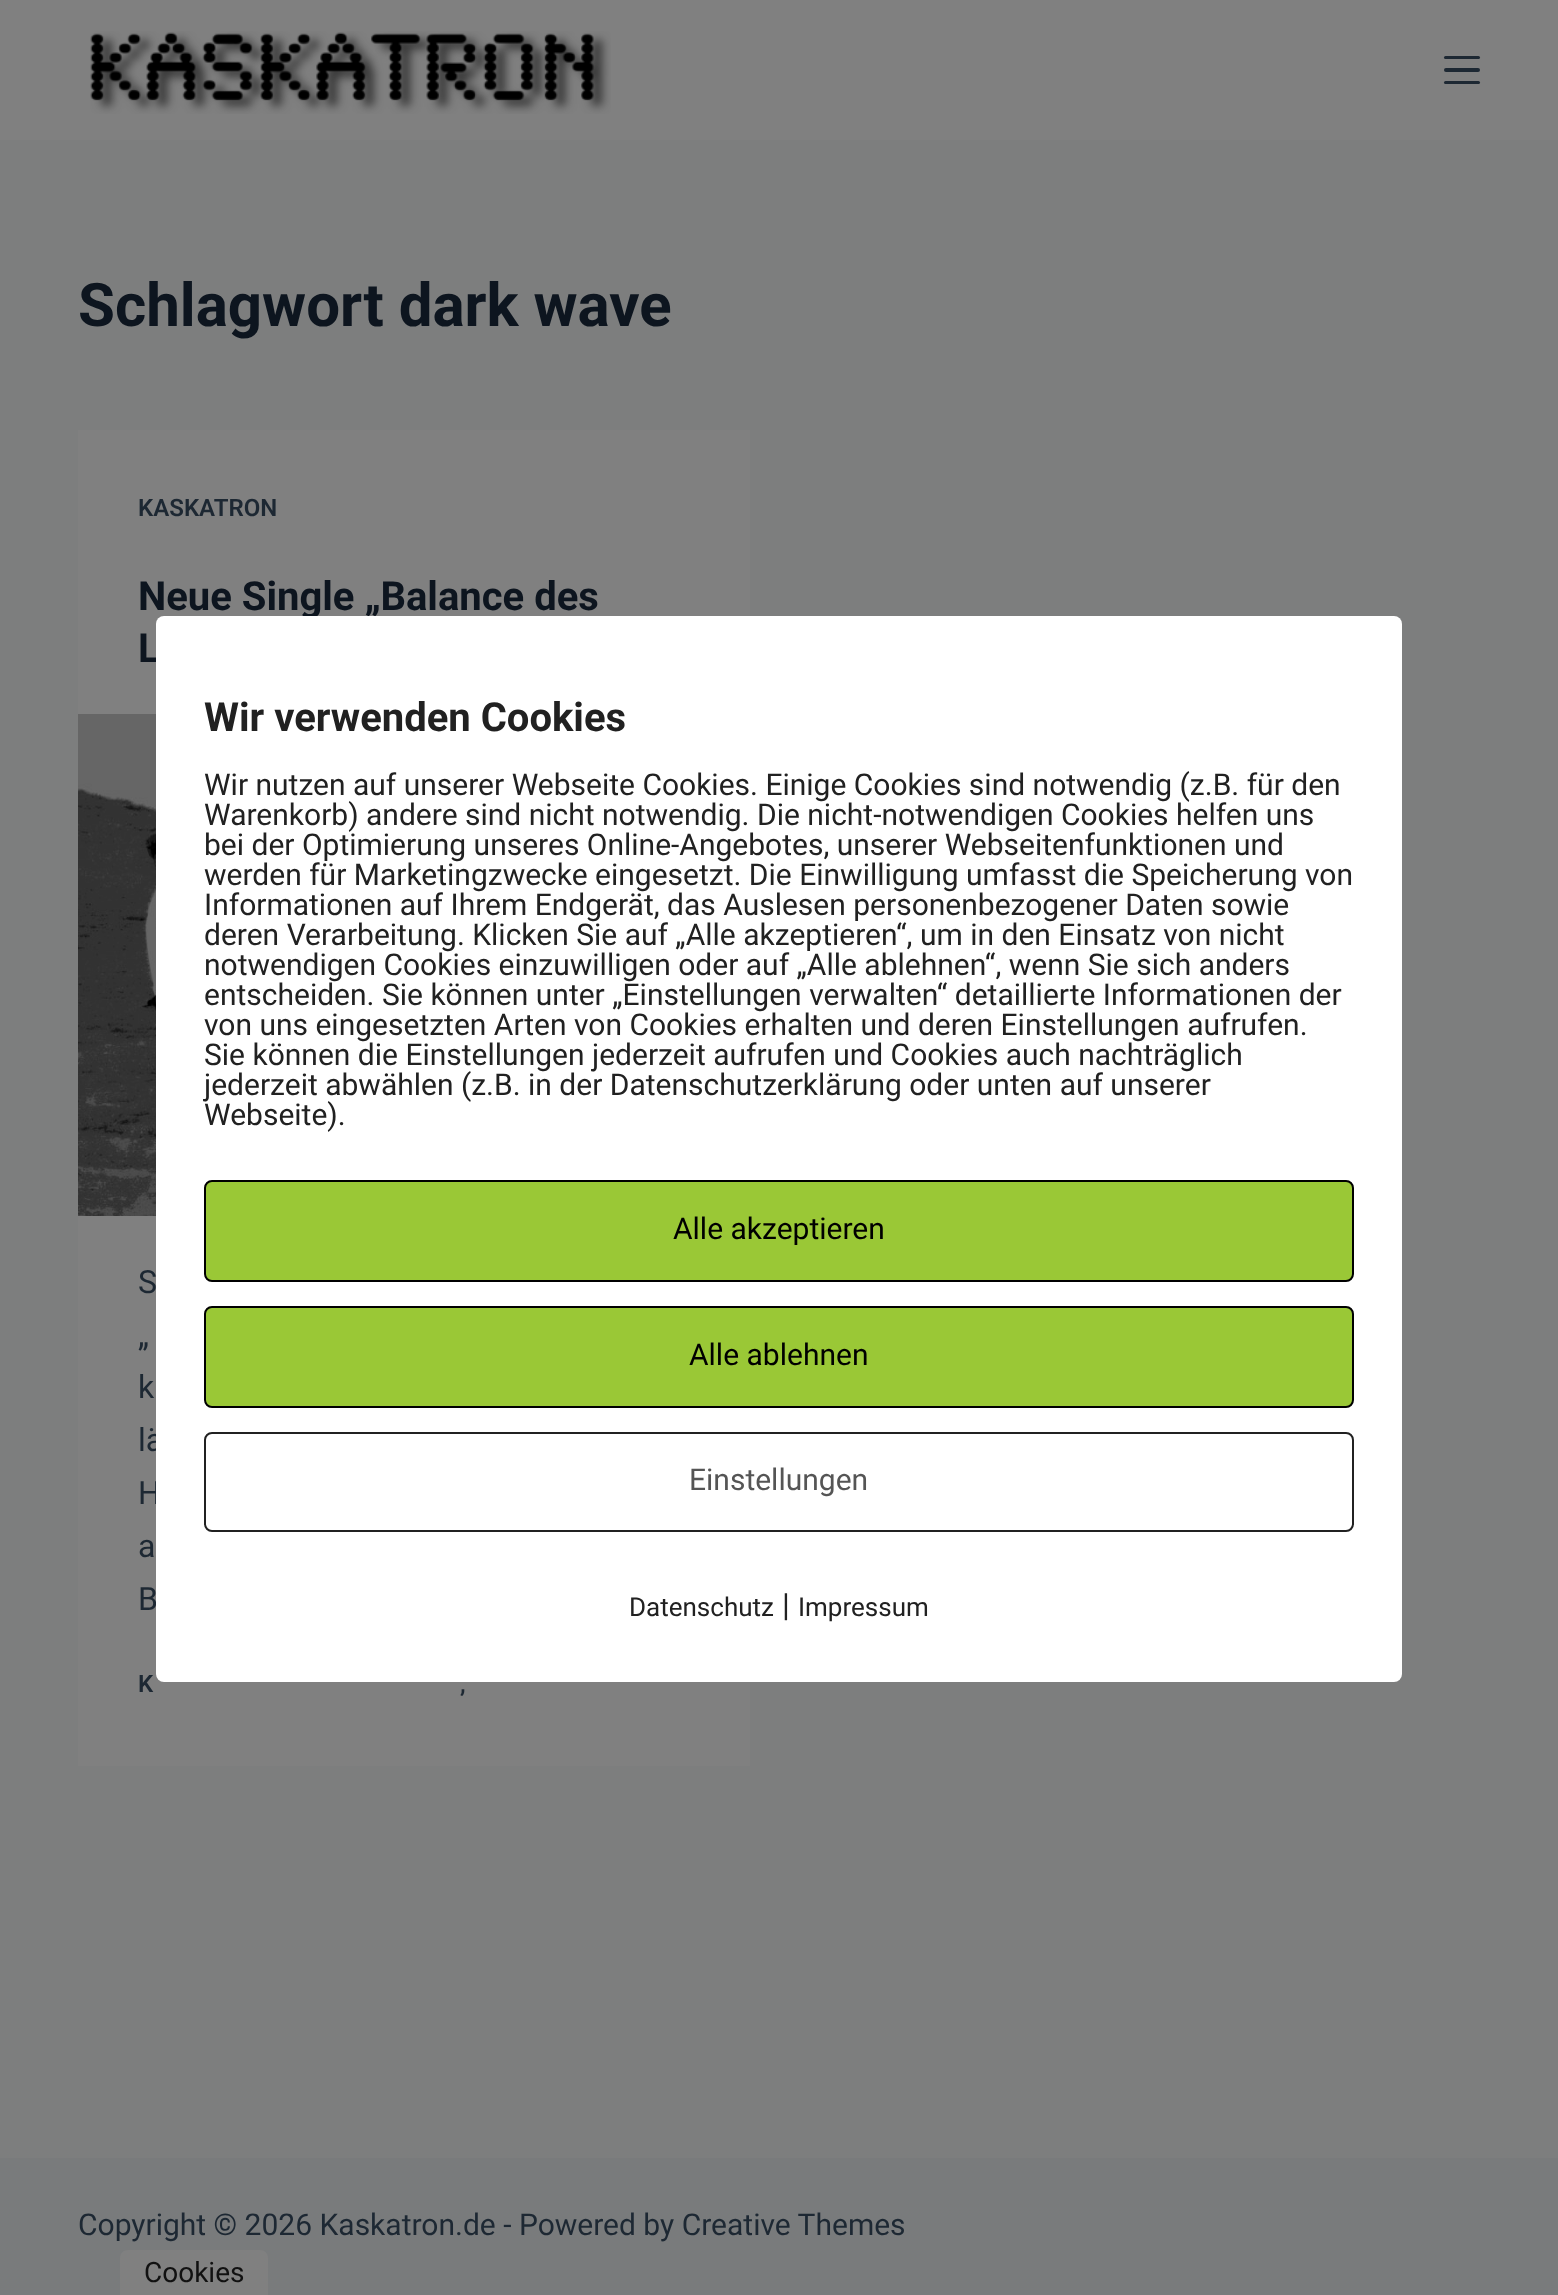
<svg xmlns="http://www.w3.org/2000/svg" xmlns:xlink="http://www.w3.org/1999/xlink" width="1558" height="2295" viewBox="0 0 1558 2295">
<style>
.cls-1{font:bold 60px Roboto;fill:#0d151f}
.cls-2{font:600 24px Roboto;fill:#1d2833}
.cls-3{font:bold 40px Roboto;fill:#0d151f}
.cls-4{font:32px Roboto;fill:#1d2833}
.cls-5{font:30px Roboto;fill:#1d2833}
.cls-6{font:bold 40px Roboto;fill:#212121}
.cls-7{font:30px Roboto;fill:#212121}
.cls-8{font:30px Roboto;fill:#000000}
.cls-9{font:30px Roboto;fill:#555555}
.cls-10{font:26px Roboto;fill:#212121}
.cls-11{font:32px Roboto;fill:#212121}
.cls-12{font:28px Roboto;fill:#111111}
</style>
<rect width="100%" height="100%" fill="#7d7e7e"/>
<rect fill="#808080" x="0" y="0" width="1558" height="140"/>
<image xlink:href="image0.png" x="90" y="31" width="521" height="83"/>
<rect fill="#1d2833" x="1444" y="56" width="36" height="3" rx="1.5"/>
<rect fill="#1d2833" x="1444" y="68" width="36" height="4" rx="2"/>
<rect fill="#1d2833" x="1444" y="81" width="36" height="3" rx="1.5"/>
<rect fill="#808080" x="78" y="430" width="672" height="1336"/>
<image xlink:href="image1.png" x="78" y="714" width="78" height="502"/>
<rect fill="#797b7c" x="0" y="2158" width="1558" height="137"/>
<path fill="#808080" d="M128 2250H260C264.5 2250 268 2253.5 268 2258V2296H120V2258C120 2253.5 123.5 2250 128 2250Z"/>
<text class="cls-1" x="78" y="326">Schlagwort dark wave</text>
<text class="cls-2" x="138" y="516">KASKATRON</text>
<text class="cls-3"><tspan x="138" y="610">Neue Single „Balance des</tspan><tspan x="138" y="662">L</tspan></text>
<text class="cls-4"><tspan x="138" y="1293">S</tspan><tspan x="138" y="1346">„</tspan><tspan x="138" y="1398">k</tspan><tspan x="138" y="1451">lä</tspan><tspan x="138" y="1504">H</tspan><tspan x="138" y="1557">a</tspan><tspan x="138" y="1610">B</tspan></text>
<text class="cls-2" x="138" y="1692">K</text>
<text class="cls-2" x="460" y="1692">,</text>
<text class="cls-5" x="78" y="2235">Copyright © 2026 Kaskatron.de - Powered by Creative Themes</text>
<rect fill="#ffffff" x="156" y="616" width="1246" height="1066" rx="8"/>
<text class="cls-6" x="204" y="731">Wir verwenden Cookies</text>
<text class="cls-7"><tspan x="204" y="795">Wir nutzen auf unserer Webseite Cookies. Einige Cookies sind notwendig (z.B. für den</tspan><tspan x="204" y="825">Warenkorb) andere sind nicht notwendig. Die nicht-notwendigen Cookies helfen uns</tspan><tspan x="204" y="855">bei der Optimierung unseres Online-Angebotes, unserer Webseitenfunktionen und</tspan><tspan x="204" y="885">werden für Marketingzwecke eingesetzt. Die Einwilligung umfasst die Speicherung von</tspan><tspan x="204" y="915">Informationen auf Ihrem Endgerät, das Auslesen personenbezogener Daten sowie</tspan><tspan x="204" y="945">deren Verarbeitung. Klicken Sie auf „Alle akzeptieren“, um in den Einsatz von nicht</tspan><tspan x="204" y="975">notwendigen Cookies einzuwilligen oder auf „Alle ablehnen“, wenn Sie sich anders</tspan><tspan x="204" y="1005">entscheiden. Sie können unter „Einstellungen verwalten“ detaillierte Informationen der</tspan><tspan x="204" y="1035">von uns eingesetzten Arten von Cookies erhalten und deren Einstellungen aufrufen.</tspan><tspan x="204" y="1065">Sie können die Einstellungen jederzeit aufrufen und Cookies auch nachträglich</tspan><tspan x="204" y="1095">jederzeit abwählen (z.B. in der Datenschutzerklärung oder unten auf unserer</tspan><tspan x="204" y="1125">Webseite).</tspan></text>
<rect fill="#9ac836" stroke="#000000" stroke-width="2" x="205" y="1181" width="1148" height="100" rx="7"/>
<text class="cls-8" x="673" y="1239">Alle akzeptieren</text>
<rect fill="#9ac836" stroke="#000000" stroke-width="2" x="205" y="1307" width="1148" height="100" rx="7"/>
<text class="cls-8" x="689" y="1365">Alle ablehnen</text>
<rect fill="none" stroke="#212121" stroke-width="2" x="205" y="1433" width="1148" height="98" rx="7"/>
<text class="cls-9" x="689" y="1490">Einstellungen</text>
<text class="cls-10" x="629" y="1616">Datenschutz</text>
<text class="cls-11" x="782" y="1616">|</text>
<text class="cls-10" x="798" y="1616">Impressum</text>
<text class="cls-12" x="144" y="2282">Cookies</text>
</svg>
